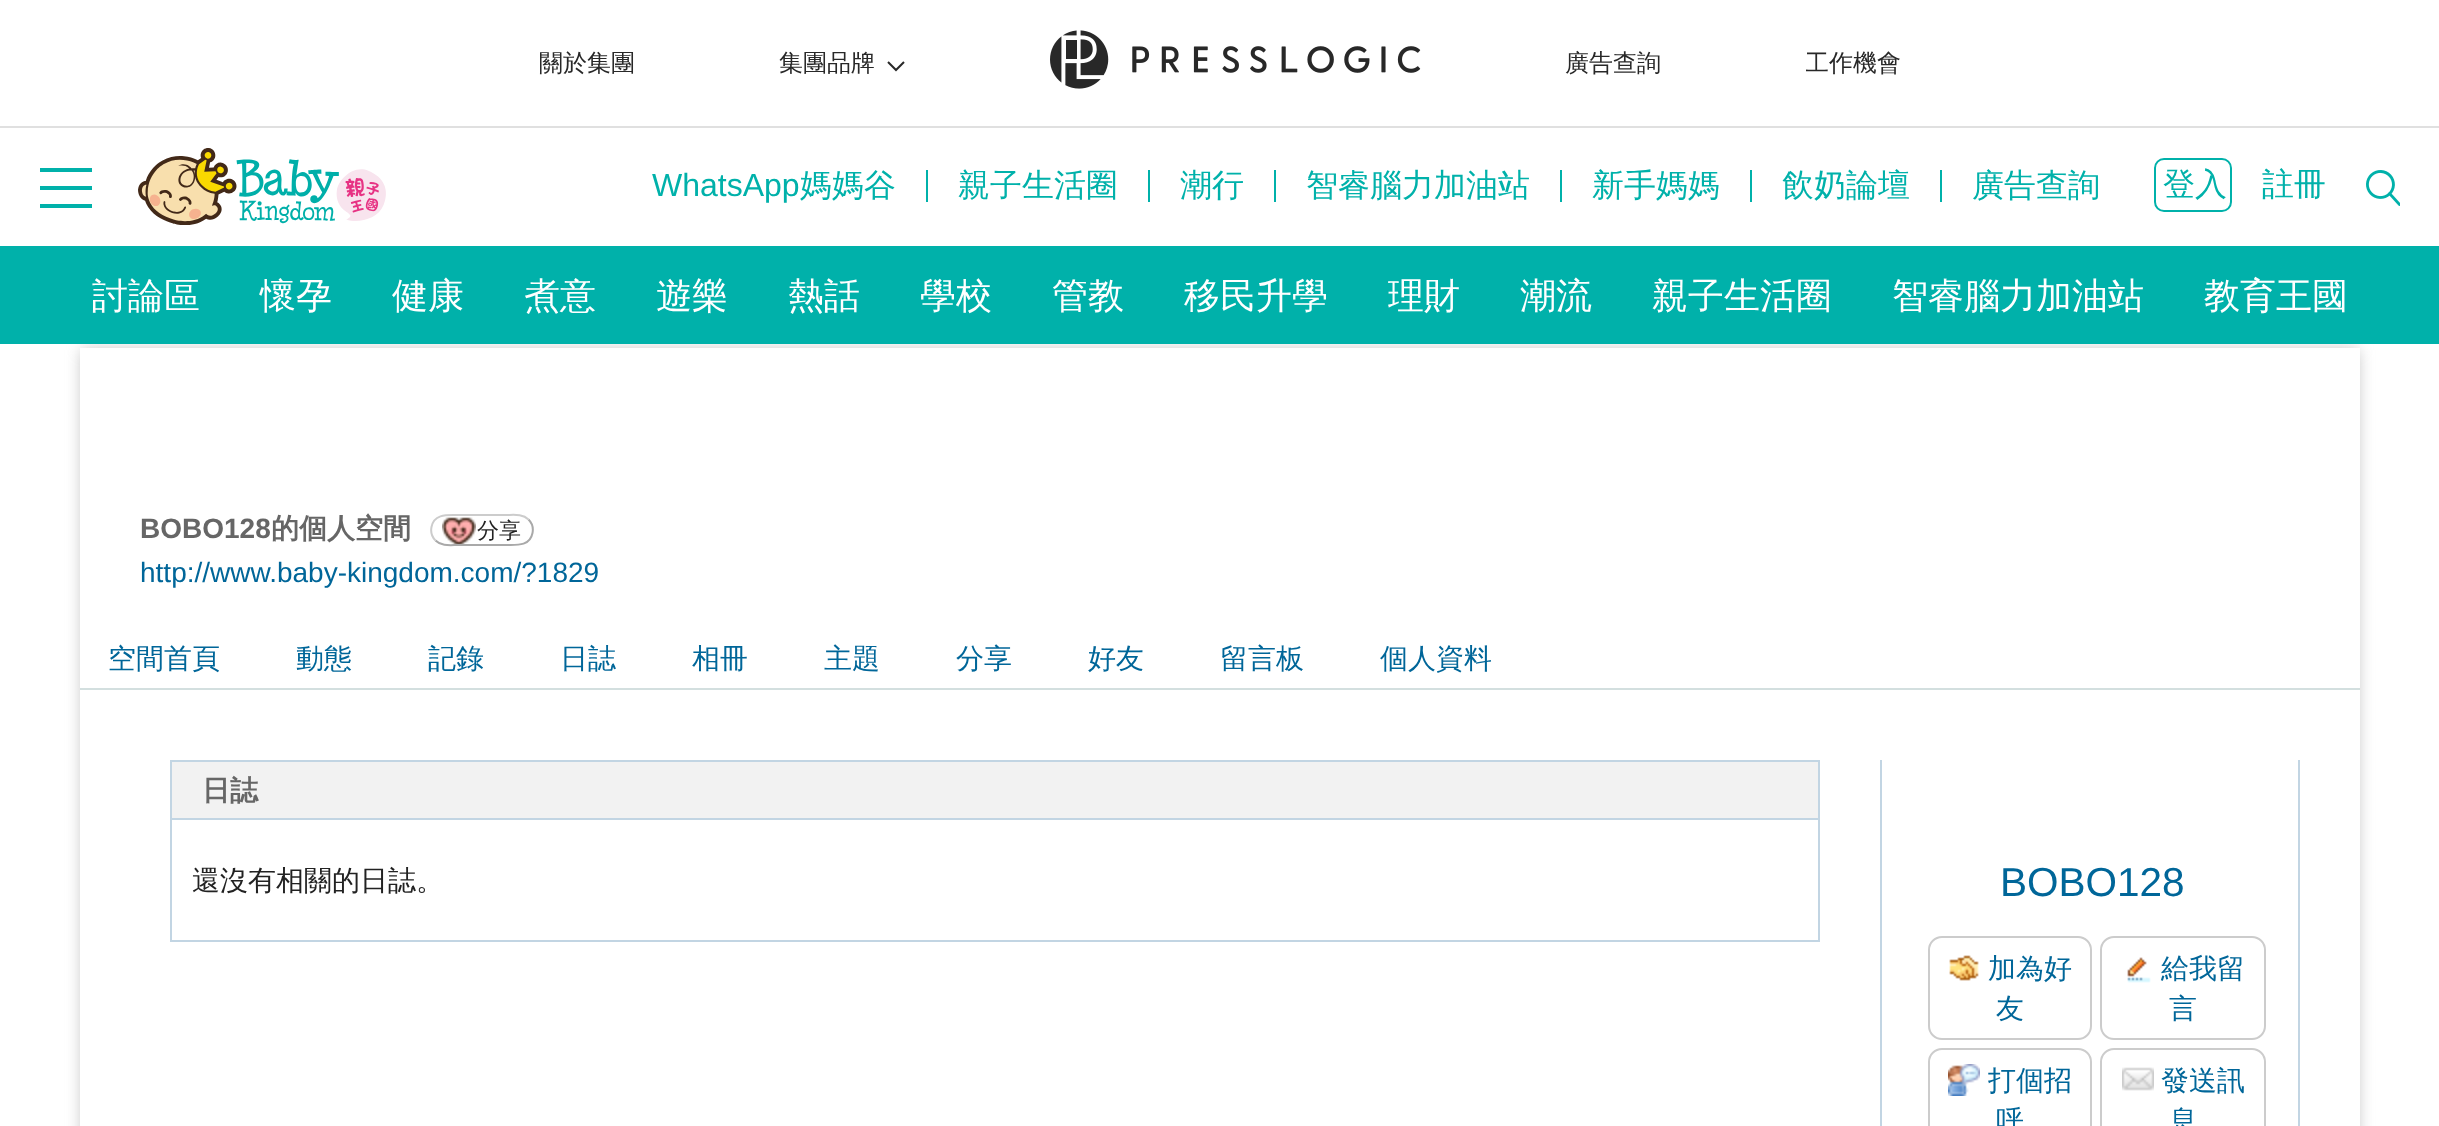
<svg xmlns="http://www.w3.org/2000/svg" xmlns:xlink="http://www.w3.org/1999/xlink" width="2439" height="1126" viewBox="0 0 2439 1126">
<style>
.cls-1{font:500 24px WenQuanYi Zen Hei;fill:#282828}
.cls-2{font:32px Liberation Sans;fill:#00b1aa}
.cls-3{font:500 32px WenQuanYi Zen Hei;fill:#00b1aa}
.cls-4{font:500 36px WenQuanYi Zen Hei;fill:#ffffff}
.cls-5{font:bold 28px Liberation Sans;fill:#666666}
.cls-6{font:bold 28px WenQuanYi Zen Hei;fill:#666666}
.cls-7{font:500 22px WenQuanYi Zen Hei;fill:#222222}
.cls-8{font:28px Liberation Sans;fill:#006699}
.cls-9{font:500 28px WenQuanYi Zen Hei;fill:#006699}
.cls-10{font:500 28px WenQuanYi Zen Hei;fill:#222222}
.cls-11{font:40.5px Liberation Sans;fill:#006699}
</style>
<defs>
<clipPath id="clip1"><path d="M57 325H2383V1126H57ZM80 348H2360V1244H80Z" clip-rule="evenodd"/></clipPath>
<clipPath id="clip2"><rect x="1806" y="24" width="96" height="80"/></clipPath>
</defs>
<rect width="100%" height="100%" fill="#ffffff"/>
<rect fill="#e0e0e0" x="0" y="126" width="2439" height="2"/>
<path fill="none" stroke="#282828" stroke-width="2" d="M904 62L896 70L888 62"/>
<image xlink:href="image0.png" x="1050" y="30" width="371" height="59"/>
<rect fill="#00b1aa" x="926" y="170" width="2" height="32"/>
<rect fill="#00b1aa" x="1148" y="170" width="2" height="32"/>
<rect fill="#00b1aa" x="1274" y="170" width="2" height="32"/>
<rect fill="#00b1aa" x="1560" y="170" width="2" height="32"/>
<rect fill="#00b1aa" x="1750" y="170" width="2" height="32"/>
<rect fill="#00b1aa" x="1940" y="170" width="2" height="32"/>
<g clip-path="url(#clip1)">
<rect fill="#828282" fill-opacity="0.5" filter="blur(8px)" x="82" y="350" width="2276" height="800"/>
</g>
<rect fill="#00b1aa" x="0" y="246" width="2439" height="98"/>
<rect fill="#00b1aa" x="40" y="168" width="52" height="4"/>
<rect fill="#00b1aa" x="40" y="186" width="52" height="4"/>
<rect fill="#00b1aa" x="40" y="204" width="52" height="4"/>
<image xlink:href="image1.png" x="138" y="148" width="248" height="77"/>
<rect fill="none" stroke="#00b1aa" stroke-width="2" x="2155" y="159" width="76" height="52" rx="9"/>
<image xlink:href="image2.png" x="2366" y="170" width="34" height="36"/>
<rect fill="#d3dfdf" x="80" y="688" width="2280" height="2"/>
<image xlink:href="image3.png" x="442" y="517" width="34" height="28"/>
<path fill="none" stroke="#a9a9a9" stroke-width="2" d="M528.5 519.5C532 523 533.5 528 532.5 533C530 546.5 516.5 545 506 545H458C450.5 545 441.5 546.5 435.5 540.5"/>
<path fill="none" stroke="#cccccc" stroke-width="2" d="M435.5 540.5C432 537 430.5 532 431.5 527C434 513.5 447.5 515 458 515H506C513.5 515 522.5 513.5 528.5 519.5"/>
<rect fill="#c2d5e3" x="1818" y="760" width="2" height="182"/>
<rect fill="#c2d5e3" x="170" y="940" width="1650" height="2"/>
<rect fill="#c2d5e3" x="170" y="760" width="2" height="182"/>
<rect fill="#f2f2f2" x="172" y="762" width="1646" height="56"/>
<rect fill="#c2d5e3" x="172" y="760" width="1646" height="2"/>
<rect fill="#c2d5e3" x="172" y="818" width="1646" height="2"/>
<rect fill="#c2d5e3" x="2298" y="760" width="2" height="366"/>
<rect fill="#c2d5e3" x="1880" y="760" width="2" height="366"/>
<rect fill="none" stroke="#cccccc" stroke-width="2" x="1929" y="937" width="162" height="102" rx="13"/>
<image xlink:href="image4.png" x="1949" y="955" width="30" height="26"/>
<rect fill="none" stroke="#cccccc" stroke-width="2" x="2101" y="937" width="164" height="102" rx="13"/>
<image xlink:href="image5.png" x="2127" y="957" width="24" height="26"/>
<rect fill="none" stroke="#cccccc" stroke-width="2" x="1929" y="1049" width="162" height="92" rx="13"/>
<image xlink:href="image6.png" x="1948" y="1064" width="32" height="32"/>
<rect fill="none" stroke="#cccccc" stroke-width="2" x="2101" y="1049" width="164" height="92" rx="13"/>
<image xlink:href="image7.png" x="2122" y="1067" width="32" height="24"/>
<text class="cls-1" x="539" y="71">關於集團</text>
<text class="cls-1" x="779" y="71">集團品牌</text>
<text class="cls-1" x="1565" y="71">廣告查詢</text>
<g clip-path="url(#clip2)">
<text class="cls-1" x="1805" y="71">工作機會</text>
</g>
<text class="cls-2" x="652" y="196">WhatsApp</text>
<text class="cls-3" x="800" y="196">媽媽谷</text>
<text class="cls-3" x="958" y="196">親子生活圈</text>
<text class="cls-3" x="1180" y="196">潮行</text>
<text class="cls-3" x="1306" y="196">智睿腦力加油站</text>
<text class="cls-3" x="1592" y="196">新手媽媽</text>
<text class="cls-3" x="1782" y="196">飲奶論壇</text>
<text class="cls-3" x="1972" y="196">廣告查詢</text>
<text class="cls-4" x="92" y="308">討論區</text>
<text class="cls-4" x="260" y="308">懷孕</text>
<text class="cls-4" x="392" y="308">健康</text>
<text class="cls-4" x="524" y="308">煮意</text>
<text class="cls-4" x="656" y="308">遊樂</text>
<text class="cls-4" x="788" y="308">熱話</text>
<text class="cls-4" x="920" y="308">學校</text>
<text class="cls-4" x="1052" y="308">管教</text>
<text class="cls-4" x="1184" y="308">移民升學</text>
<text class="cls-4" x="1388" y="308">理財</text>
<text class="cls-4" x="1520" y="308">潮流</text>
<text class="cls-4" x="1652" y="308">親子生活圈</text>
<text class="cls-4" x="1892" y="308">智睿腦力加油站</text>
<text class="cls-4" x="2204" y="308">教育王國</text>
<text class="cls-3" x="2163" y="195">登入</text>
<text class="cls-3" x="2262" y="195">註冊</text>
<text class="cls-5" x="140" y="538">BOBO128</text>
<text class="cls-6" x="271" y="538">的個人空間</text>
<text class="cls-7" x="477" y="538">分享</text>
<text class="cls-8" x="140" y="582">http://www.baby-kingdom.com/?1829</text>
<text class="cls-9" x="108" y="668">空間首頁</text>
<text class="cls-9" x="296" y="668">動態</text>
<text class="cls-9" x="428" y="668">記錄</text>
<text class="cls-9" x="560" y="668">日誌</text>
<text class="cls-9" x="692" y="668">相冊</text>
<text class="cls-9" x="824" y="668">主題</text>
<text class="cls-9" x="956" y="668">分享</text>
<text class="cls-9" x="1088" y="668">好友</text>
<text class="cls-9" x="1220" y="668">留言板</text>
<text class="cls-9" x="1380" y="668">個人資料</text>
<text class="cls-6" x="202" y="800">日誌</text>
<text class="cls-10" x="192" y="890">還沒有相關的日誌。</text>
<text class="cls-11" x="2000" y="896">BOBO128</text>
<text class="cls-9" x="1988" y="978">加為好</text>
<text class="cls-9" x="1996" y="1018">友</text>
<text class="cls-9" x="2161" y="978">給我留</text>
<text class="cls-9" x="2169" y="1018">言</text>
<text class="cls-9" x="1988" y="1090">打個招</text>
<text class="cls-9" x="1996" y="1130">呼</text>
<text class="cls-9" x="2161" y="1090">發送訊</text>
<text class="cls-9" x="2169" y="1130">息</text>
</svg>
